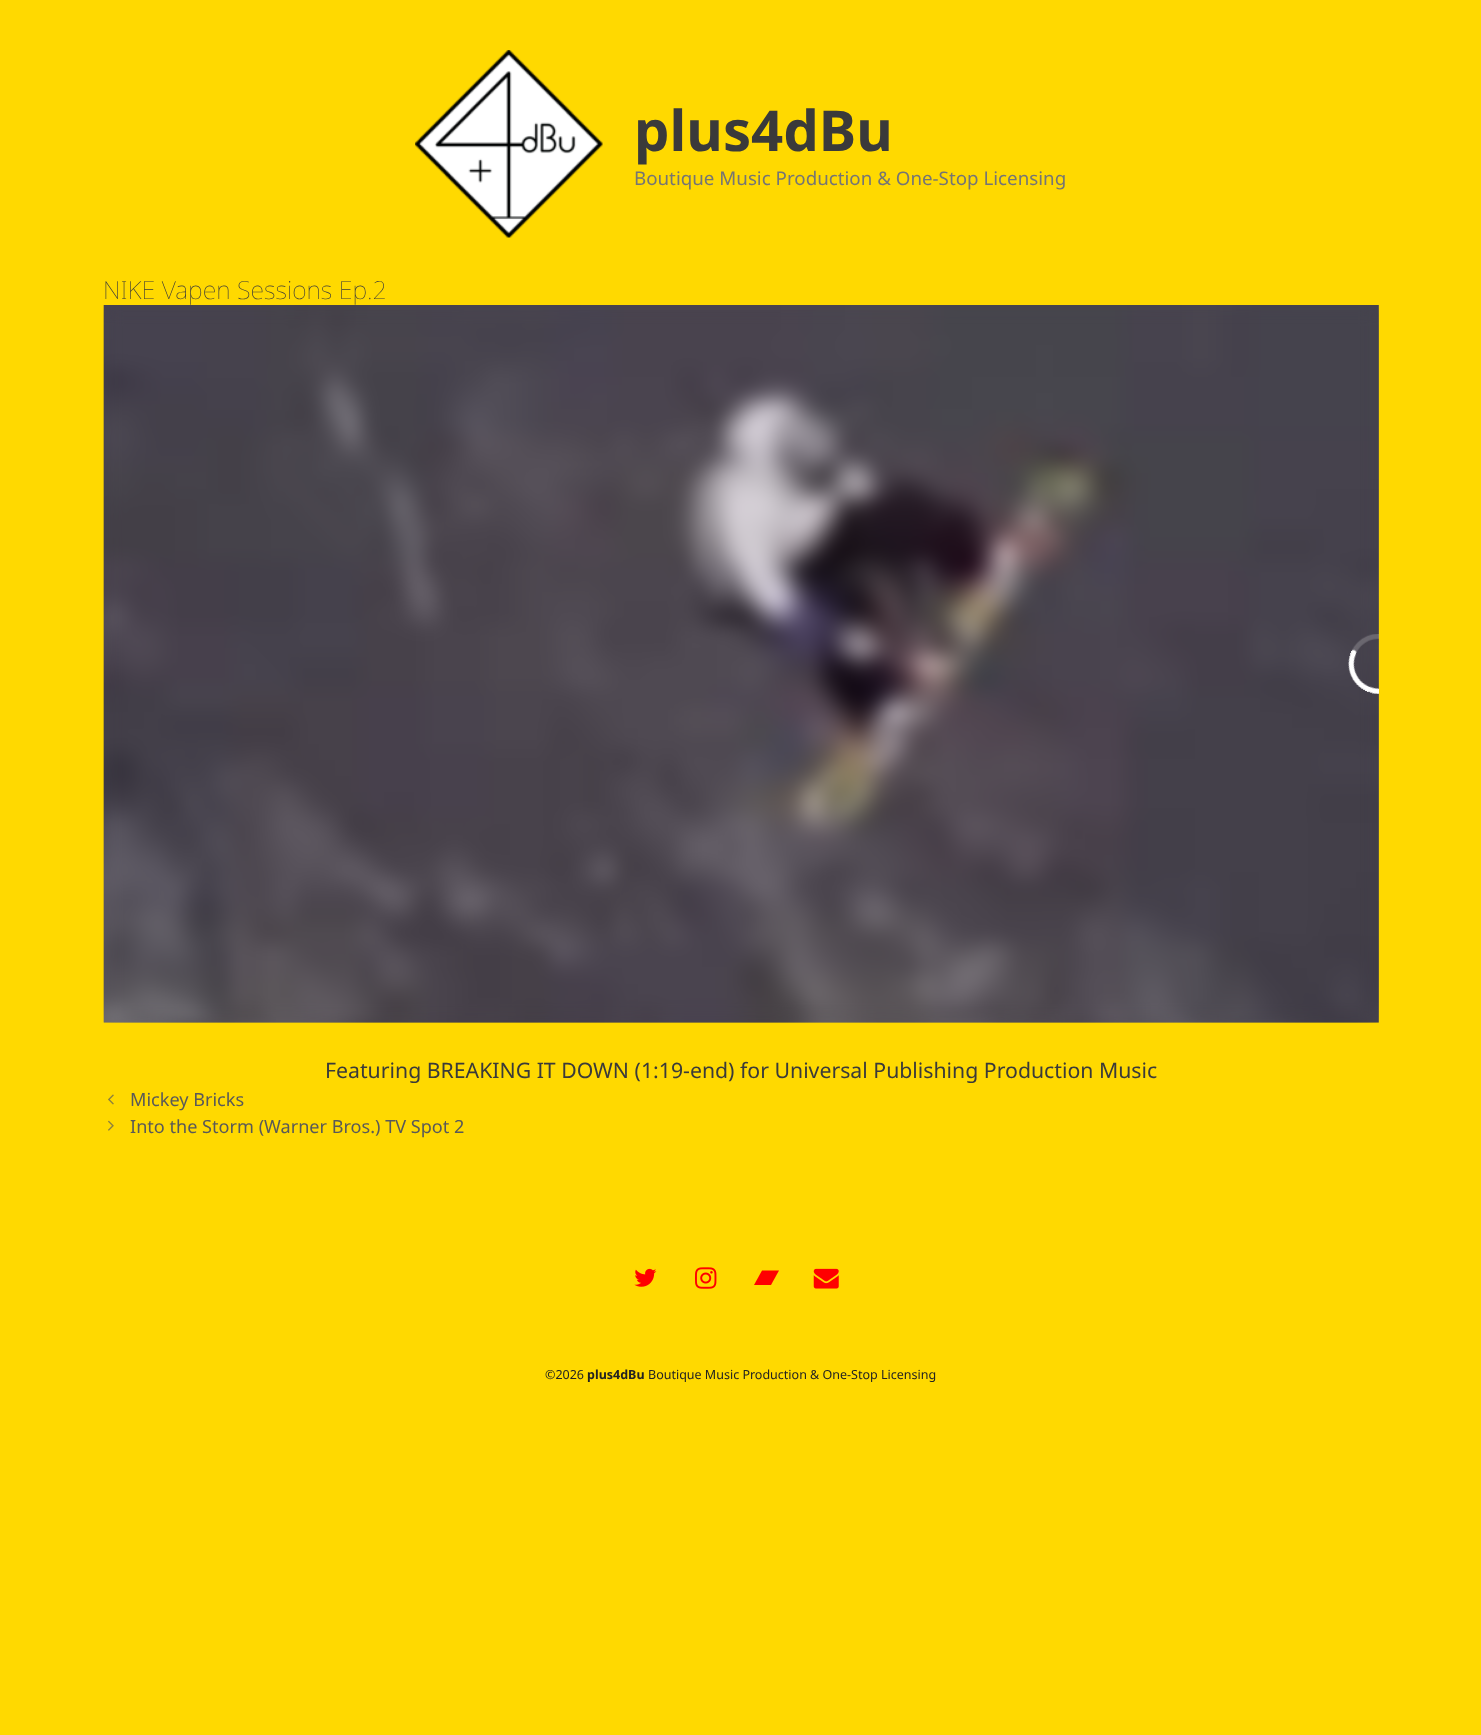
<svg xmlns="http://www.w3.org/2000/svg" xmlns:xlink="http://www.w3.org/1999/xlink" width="1481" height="1735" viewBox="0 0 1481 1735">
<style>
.cls-1{font:bold 56.25px Noto Sans;fill:#3a3a3a}
.cls-2{font:18.75px Noto Sans;fill:#757575}
.cls-3{font:100 25px Noto Sans;fill:#3a3a3a}
.cls-4{font:21.25px Noto Sans;fill:#3a3a3a}
.cls-5{font:18.1px Noto Sans;fill:#595959}
.cls-6{font:12.5px Noto Sans;fill:#222222}
.cls-7{font:bold 12.5px Noto Sans;fill:#222222}
</style>
<rect width="100%" height="100%" fill="#ffd900"/>
<image xlink:href="image0.png" x="415" y="50" width="188" height="188"/>
<image xlink:href="image1.png" x="103" y="305" width="1276" height="718"/>
<image xlink:href="image2.png" x="108" y="1094" width="6" height="11"/>
<image xlink:href="image3.png" x="108" y="1120" width="6" height="11"/>
<image xlink:href="image4.png" x="634" y="1268" width="23" height="19"/>
<image xlink:href="image5.png" x="695" y="1267" width="22" height="22"/>
<path fill="#ff0000" d="M754 1285H771L779 1270.5H762Z"/>
<image xlink:href="image6.png" x="813" y="1268" width="26" height="21"/>
<text class="cls-1" x="634" y="151">plus4dBu</text>
<text class="cls-2" x="634" y="185">Boutique Music Production &amp; One-Stop Licensing</text>
<text class="cls-3" x="103" y="299">NIKE Vapen Sessions Ep.2</text>
<text class="cls-4" x="325" y="1078">Featuring BREAKING IT DOWN (1:19-end) for Universal Publishing Production Music</text>
<text class="cls-5"><tspan x="130" y="1106">Mickey Bricks</tspan><tspan x="130" y="1133">Into the Storm (Warner Bros.) TV Spot 2</tspan></text>
<text class="cls-6" x="545" y="1379">©2026</text>
<text class="cls-7" x="587" y="1379">plus4dBu</text>
<text class="cls-6" x="648" y="1379">Boutique Music Production &amp; One-Stop Licensing</text>
</svg>
